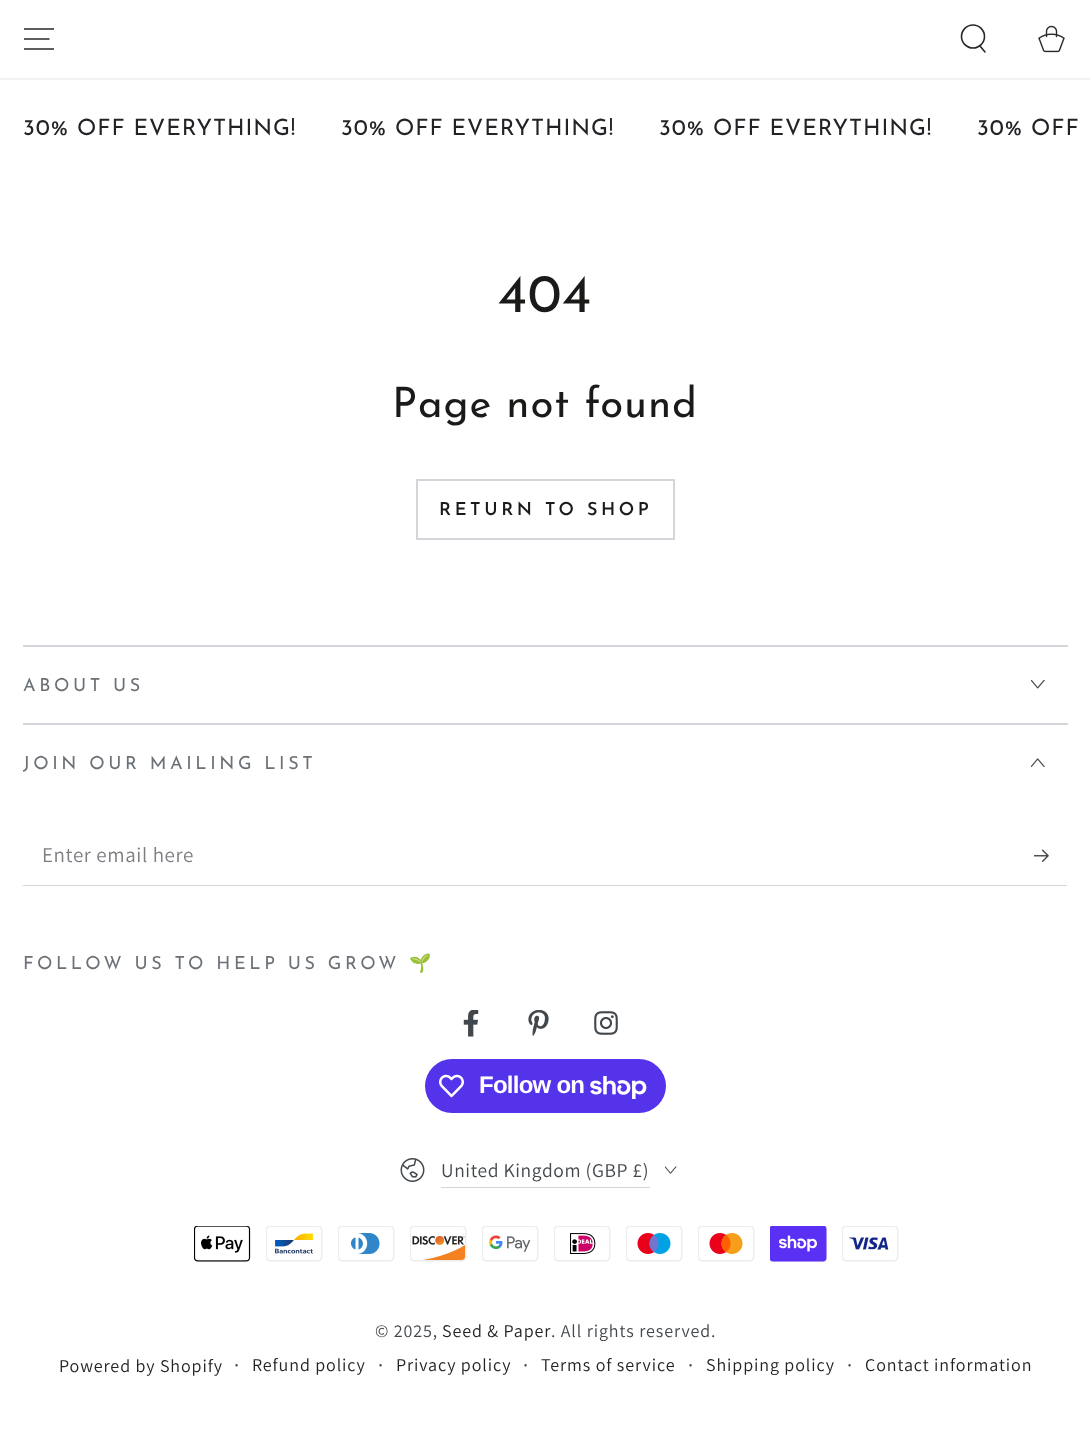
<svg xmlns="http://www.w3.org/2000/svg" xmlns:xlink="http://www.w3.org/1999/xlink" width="1090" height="1454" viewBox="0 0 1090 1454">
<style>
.cls-1{font:22.5px Josefin Sans;letter-spacing:0.9px;fill:#212326}
.cls-2{font:54px Josefin Sans;letter-spacing:0.9px;fill:#1a1b18}
.cls-3{font:42px Josefin Sans;letter-spacing:0.9px;fill:#1a1b18}
.cls-4{font:600 18px Josefin Sans;letter-spacing:3.6px;fill:#1a1b18}
.cls-5{font:18px Josefin Sans;letter-spacing:3.6px;fill:#6b7177}
.cls-6{font:21px Assistant;letter-spacing:0.6px;fill:#7b7e82}
.cls-7{font:18px Noto Color Emoji;letter-spacing:3.6px;fill:#6b7177}
.cls-8{font:bold 24px Liberation Sans;letter-spacing:-0.75px;fill:#ffffff}
.cls-9{font:19.5px Assistant;letter-spacing:0.6px;fill:#42474c}
.cls-10{font:18px Assistant;letter-spacing:0.9px;fill:#42474c}
.cls-11{font:18px Assistant;letter-spacing:0.9px;fill:#212326}
.cls-12{font:21px Assistant;letter-spacing:0.9px;fill:#42474c}
</style>
<rect width="100%" height="100%" fill="#ffffff"/>
<path fill="#f2f2f4" d="M0 78V80H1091V2H1090V78Z"/>
<path fill="none" stroke="#282828" stroke-width="1.3" d="M24 49H54M24 39H49.5M24 29H54"/>
<circle fill="none" stroke="#282828" stroke-width="1.6" cx="973" cy="36.5" r="11.5"/>
<path fill="none" stroke="#282828" stroke-width="1.6" stroke-linecap="round" d="M980 46L985 52"/>
<image xlink:href="image0.png" x="1038" y="25" width="27" height="28"/>
<rect fill="none" stroke="#d2d5d9" stroke-width="2" x="417" y="480" width="257" height="59"/>
<rect fill="#d2d5d9" x="23" y="645" width="1045" height="2"/>
<rect fill="#d2d5d9" x="23" y="723" width="1045" height="2"/>
<image xlink:href="image1.png" x="1031" y="680" width="14" height="9"/>
<image xlink:href="image2.png" x="1031" y="758" width="14" height="9"/>
<path fill="#d2d5d9" d="M1068 886H22L24 885H1066Z"/>
<image xlink:href="image3.png" x="1034" y="849" width="15" height="13"/>
<image xlink:href="image4.png" x="463" y="1010" width="16" height="27"/>
<image xlink:href="image5.png" x="528" y="1010" width="21" height="27"/>
<image xlink:href="image6.png" x="594" y="1011" width="24" height="24"/>
<rect fill="#5433eb" x="425" y="1059" width="241" height="54" rx="27"/>
<image xlink:href="image7.png" x="439" y="1074" width="25" height="24"/>
<image xlink:href="image8.png" x="590" y="1076" width="57" height="23"/>
<image xlink:href="image9.png" x="400" y="1158" width="25" height="24"/>
<rect fill="#d2d5d9" x="441" y="1187" width="209" height="1"/>
<image xlink:href="image10.png" x="665" y="1166" width="12" height="8"/>
<image xlink:href="image11.png" x="194" y="1226" width="57" height="36"/>
<image xlink:href="image12.png" x="266" y="1226" width="57" height="36"/>
<image xlink:href="image13.png" x="338" y="1226" width="57" height="36"/>
<image xlink:href="image14.png" x="410" y="1226" width="57" height="36"/>
<image xlink:href="image15.png" x="482" y="1226" width="57" height="36"/>
<image xlink:href="image16.png" x="554" y="1226" width="57" height="36"/>
<image xlink:href="image17.png" x="626" y="1226" width="57" height="36"/>
<image xlink:href="image18.png" x="698" y="1226" width="57" height="36"/>
<image xlink:href="image19.png" x="770" y="1226" width="57" height="36"/>
<image xlink:href="image20.png" x="842" y="1226" width="57" height="36"/>
<text class="cls-1" x="23" y="135">30% OFF EVERYTHING!</text>
<text class="cls-1" x="341" y="135">30% OFF EVERYTHING!</text>
<text class="cls-1" x="659" y="135">30% OFF EVERYTHING!</text>
<text class="cls-1" x="977" y="135">30% OFF</text>
<text class="cls-2" x="498" y="312">404</text>
<text class="cls-3" x="392" y="417">Page not found</text>
<text class="cls-4" x="439" y="515">RETURN TO SHOP</text>
<text class="cls-5" x="23" y="691">ABOUT US</text>
<text class="cls-5" x="23" y="769">JOIN OUR MAILING LIST</text>
<text class="cls-6" x="42" y="862">Enter email here</text>
<text class="cls-5" x="23" y="969">FOLLOW US TO HELP US GROW</text>
<text class="cls-7" x="409" y="969">🌱</text>
<text class="cls-8" x="479" y="1093">Follow on</text>
<text class="cls-9" x="441" y="1177">United Kingdom (GBP £)</text>
<text class="cls-10" x="375" y="1337">© 2025,</text>
<text class="cls-11" x="442" y="1337">Seed &amp; Paper</text>
<text class="cls-10" x="551" y="1337">. All rights reserved.</text>
<text class="cls-11" x="59" y="1372">Powered by Shopify</text>
<text class="cls-12" x="234" y="1372">·</text>
<text class="cls-11" x="252" y="1371">Refund policy</text>
<text class="cls-12" x="378" y="1372">·</text>
<text class="cls-11" x="396" y="1371">Privacy policy</text>
<text class="cls-12" x="523" y="1372">·</text>
<text class="cls-11" x="541" y="1371">Terms of service</text>
<text class="cls-12" x="688" y="1372">·</text>
<text class="cls-11" x="706" y="1371">Shipping policy</text>
<text class="cls-12" x="847" y="1372">·</text>
<text class="cls-11" x="865" y="1371">Contact information</text>
</svg>
